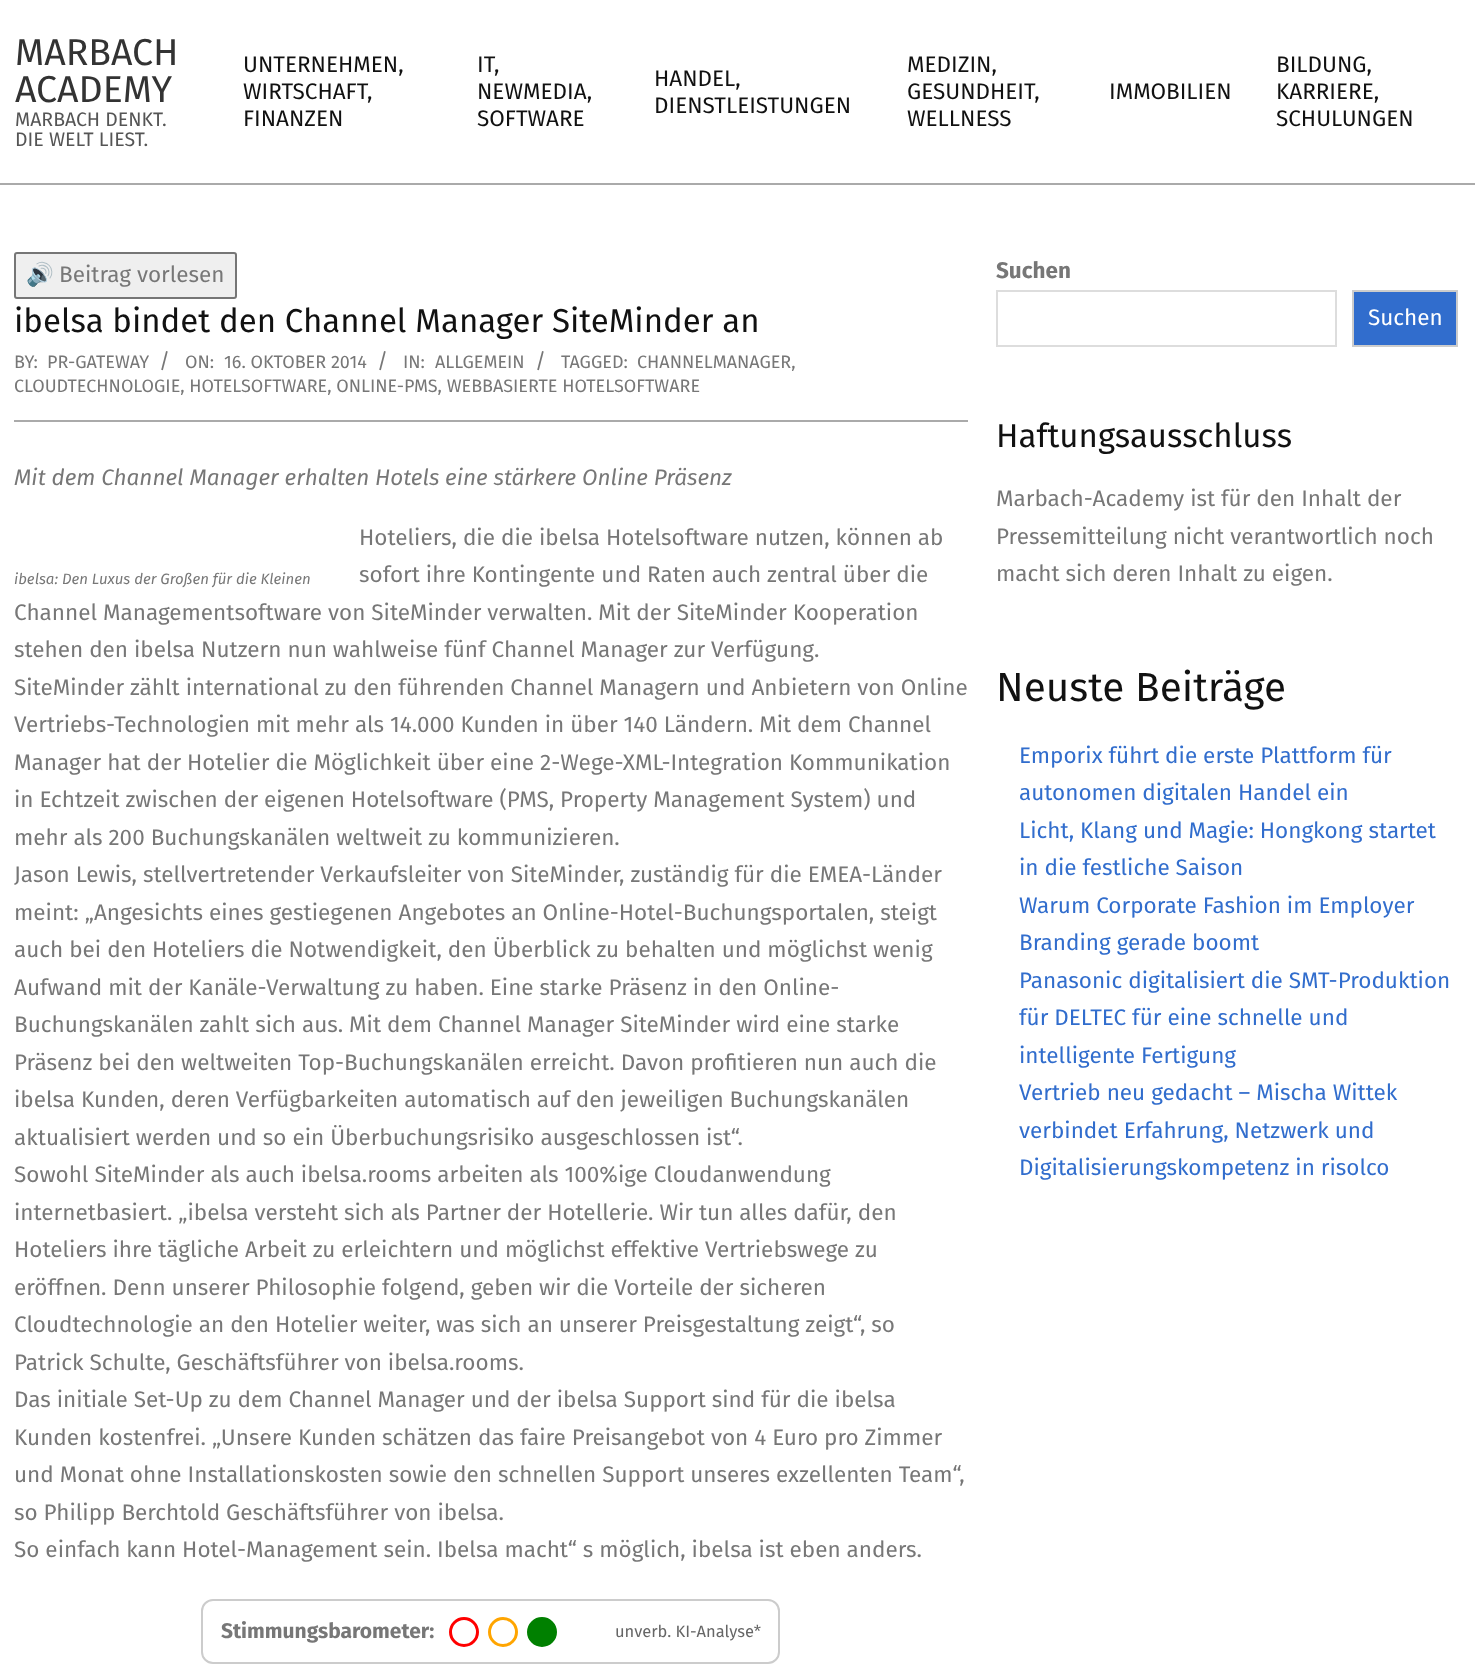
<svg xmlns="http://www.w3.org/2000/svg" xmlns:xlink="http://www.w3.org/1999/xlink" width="1475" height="1667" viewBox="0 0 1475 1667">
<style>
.cls-1{font:37.5px Fira Sans;fill:#333333}
.cls-2{font:19.5px Fira Sans;fill:#555555}
.cls-3{font:22.5px Fira Sans;fill:#111111}
.cls-4{font:22.5px Noto Color Emoji;fill:#777777}
.cls-5{font:22.5px Fira Sans;fill:#777777}
.cls-6{font:33px Fira Sans;fill:#111111}
.cls-7{font:18px Fira Sans;fill:#777777}
.cls-8{font:21px Fira Sans;fill:#777777}
.cls-9{font:italic 22.5px Fira Sans;fill:#777777}
.cls-10{font:italic 15px Fira Sans;fill:#777777}
.cls-11{font:bold 21px Fira Sans;fill:#777777}
.cls-12{font:16.5px Fira Sans;fill:#666666}
.cls-13{font:bold 22.5px Fira Sans;fill:#777777}
.cls-14{font:22.5px Fira Sans;fill:#ffffff}
.cls-15{font:40.5px Fira Sans;fill:#111111}
.cls-16{font:22.5px Fira Sans;fill:#316dcd}
</style>
<rect width="100%" height="100%" fill="#ffffff"/>
<rect fill="#aaaaaa" x="0" y="183" width="1475" height="2"/>
<rect fill="#efefef" stroke="#767676" stroke-width="2" x="15" y="253" width="221" height="45" rx="2"/>
<rect fill="#aaaaaa" x="14" y="420" width="954" height="2"/>
<rect fill="none" stroke="#cccccc" stroke-width="2" x="202" y="1600" width="577" height="63" rx="11"/>
<circle fill="none" stroke="#ff0000" stroke-width="3" cx="464" cy="1632" r="13.5"/>
<circle fill="none" stroke="#ffa500" stroke-width="3" cx="503" cy="1632" r="13.5"/>
<circle fill="#008000" stroke="#008000" stroke-width="3" cx="542" cy="1632" r="13.5"/>
<rect fill="none" stroke="#dddddd" stroke-width="2" x="997" y="291" width="339" height="55"/>
<rect fill="#316dcd" stroke="#cccccc" stroke-width="2" x="1353" y="291" width="104" height="55"/>
<text class="cls-1"><tspan x="15" y="65">MARBACH</tspan><tspan x="15" y="102">ACADEMY</tspan></text>
<text class="cls-2"><tspan x="15" y="126">MARBACH DENKT.</tspan><tspan x="15" y="146">DIE WELT LIEST.</tspan></text>
<text class="cls-3"><tspan x="243" y="72">UNTERNEHMEN,</tspan><tspan x="243" y="99">WIRTSCHAFT,</tspan><tspan x="243" y="126">FINANZEN</tspan></text>
<text class="cls-3"><tspan x="477" y="72">IT,</tspan><tspan x="477" y="99">NEWMEDIA,</tspan><tspan x="477" y="126">SOFTWARE</tspan></text>
<text class="cls-3"><tspan x="654" y="86">HANDEL,</tspan><tspan x="654" y="113">DIENSTLEISTUNGEN</tspan></text>
<text class="cls-3"><tspan x="907" y="72">MEDIZIN,</tspan><tspan x="907" y="99">GESUNDHEIT,</tspan><tspan x="907" y="126">WELLNESS</tspan></text>
<text class="cls-3" x="1109" y="99">IMMOBILIEN</text>
<text class="cls-3"><tspan x="1276" y="72">BILDUNG,</tspan><tspan x="1276" y="99">KARRIERE,</tspan><tspan x="1276" y="126">SCHULUNGEN</tspan></text>
<text class="cls-4" x="26" y="282">🔊</text>
<text class="cls-5" x="59" y="282">Beitrag vorlesen</text>
<text class="cls-6" x="14" y="332">ibelsa bindet den Channel Manager SiteMinder an</text>
<text class="cls-7" x="14" y="368">BY:</text>
<text class="cls-7" x="47" y="368">PR-GATEWAY</text>
<text class="cls-8" x="159" y="368">/</text>
<text class="cls-7" x="185" y="368">ON:</text>
<text class="cls-7" x="224" y="368">16. OKTOBER 2014</text>
<text class="cls-8" x="377" y="368">/</text>
<text class="cls-7" x="403" y="368">IN:</text>
<text class="cls-7" x="435" y="368">ALLGEMEIN</text>
<text class="cls-8" x="535" y="368">/</text>
<text class="cls-7" x="561" y="368">TAGGED:</text>
<text class="cls-7" x="637" y="368">CHANNELMANAGER,</text>
<text class="cls-7" x="14" y="392">CLOUDTECHNOLOGIE, HOTELSOFTWARE, ONLINE-PMS, WEBBASIERTE HOTELSOFTWARE</text>
<text class="cls-9" x="14" y="485">Mit dem Channel Manager erhalten Hotels eine stärkere Online Präsenz</text>
<text class="cls-5"><tspan x="359" y="545">Hoteliers, die die ibelsa Hotelsoftware nutzen, können ab</tspan><tspan x="359" y="582">sofort ihre Kontingente und Raten auch zentral über die</tspan></text>
<text class="cls-5"><tspan x="14" y="620">Channel Managementsoftware von SiteMinder verwalten. Mit der SiteMinder Kooperation</tspan><tspan x="14" y="657">stehen den ibelsa Nutzern nun wahlweise fünf Channel Manager zur Verfügung.</tspan><tspan x="14" y="695">SiteMinder zählt international zu den führenden Channel Managern und Anbietern von Online</tspan><tspan x="14" y="732">Vertriebs-Technologien mit mehr als 14.000 Kunden in über 140 Ländern. Mit dem Channel</tspan><tspan x="14" y="770">Manager hat der Hotelier die Möglichkeit über eine 2-Wege-XML-Integration Kommunikation</tspan><tspan x="14" y="807">in Echtzeit zwischen der eigenen Hotelsoftware (PMS, Property Management System) und</tspan><tspan x="14" y="845">mehr als 200 Buchungskanälen weltweit zu kommunizieren.</tspan><tspan x="14" y="882">Jason Lewis, stellvertretender Verkaufsleiter von SiteMinder, zuständig für die EMEA-Länder</tspan><tspan x="14" y="920">meint: „Angesichts eines gestiegenen Angebotes an Online-Hotel-Buchungsportalen, steigt</tspan><tspan x="14" y="957">auch bei den Hoteliers die Notwendigkeit, den Überblick zu behalten und möglichst wenig</tspan><tspan x="14" y="995">Aufwand mit der Kanäle-Verwaltung zu haben. Eine starke Präsenz in den Online-</tspan><tspan x="14" y="1032">Buchungskanälen zahlt sich aus. Mit dem Channel Manager SiteMinder wird eine starke</tspan><tspan x="14" y="1070">Präsenz bei den weltweiten Top-Buchungskanälen erreicht. Davon profitieren nun auch die</tspan><tspan x="14" y="1107">ibelsa Kunden, deren Verfügbarkeiten automatisch auf den jeweiligen Buchungskanälen</tspan><tspan x="14" y="1145">aktualisiert werden und so ein Überbuchungsrisiko ausgeschlossen ist“.</tspan><tspan x="14" y="1182">Sowohl SiteMinder als auch ibelsa.rooms arbeiten als 100%ige Cloudanwendung</tspan><tspan x="14" y="1220">internetbasiert. „ibelsa versteht sich als Partner der Hotellerie. Wir tun alles dafür, den</tspan><tspan x="14" y="1257">Hoteliers ihre tägliche Arbeit zu erleichtern und möglichst effektive Vertriebswege zu</tspan><tspan x="14" y="1295">eröffnen. Denn unserer Philosophie folgend, geben wir die Vorteile der sicheren</tspan><tspan x="14" y="1332">Cloudtechnologie an den Hotelier weiter, was sich an unserer Preisgestaltung zeigt“, so</tspan><tspan x="14" y="1370">Patrick Schulte, Geschäftsführer von ibelsa.rooms.</tspan><tspan x="14" y="1407">Das initiale Set-Up zu dem Channel Manager und der ibelsa Support sind für die ibelsa</tspan><tspan x="14" y="1445">Kunden kostenfrei. „Unsere Kunden schätzen das faire Preisangebot von 4 Euro pro Zimmer</tspan><tspan x="14" y="1482">und Monat ohne Installationskosten sowie den schnellen Support unseres exzellenten Team“,</tspan><tspan x="14" y="1520">so Philipp Berchtold Geschäftsführer von ibelsa.</tspan><tspan x="14" y="1557">So einfach kann Hotel-Management sein. Ibelsa macht“ s möglich, ibelsa ist eben anders.</tspan></text>
<text class="cls-10" x="14" y="584">ibelsa: Den Luxus der Großen für die Kleinen</text>
<text class="cls-11" x="221" y="1638">Stimmungsbarometer:</text>
<text class="cls-12" x="615" y="1637">unverb. KI-Analyse*</text>
<text class="cls-13" x="996" y="278">Suchen</text>
<text class="cls-14" x="1368" y="325">Suchen</text>
<text class="cls-6" x="996" y="447">Haftungsausschluss</text>
<text class="cls-5"><tspan x="996" y="506">Marbach-Academy ist für den Inhalt der</tspan><tspan x="996" y="544">Pressemitteilung nicht verantwortlich noch</tspan><tspan x="996" y="581">macht sich deren Inhalt zu eigen.</tspan></text>
<text class="cls-15" x="996" y="701">Neuste Beiträge</text>
<text class="cls-16"><tspan x="1019" y="763">Emporix führt die erste Plattform für</tspan><tspan x="1019" y="800">autonomen digitalen Handel ein</tspan><tspan x="1019" y="838">Licht, Klang und Magie: Hongkong startet</tspan><tspan x="1019" y="875">in die festliche Saison</tspan><tspan x="1019" y="913">Warum Corporate Fashion im Employer</tspan><tspan x="1019" y="950">Branding gerade boomt</tspan><tspan x="1019" y="988">Panasonic digitalisiert die SMT-Produktion</tspan><tspan x="1019" y="1025">für DELTEC für eine schnelle und</tspan><tspan x="1019" y="1063">intelligente Fertigung</tspan><tspan x="1019" y="1100">Vertrieb neu gedacht – Mischa Wittek</tspan><tspan x="1019" y="1138">verbindet Erfahrung, Netzwerk und</tspan><tspan x="1019" y="1175">Digitalisierungskompetenz in risolco</tspan></text>
</svg>
